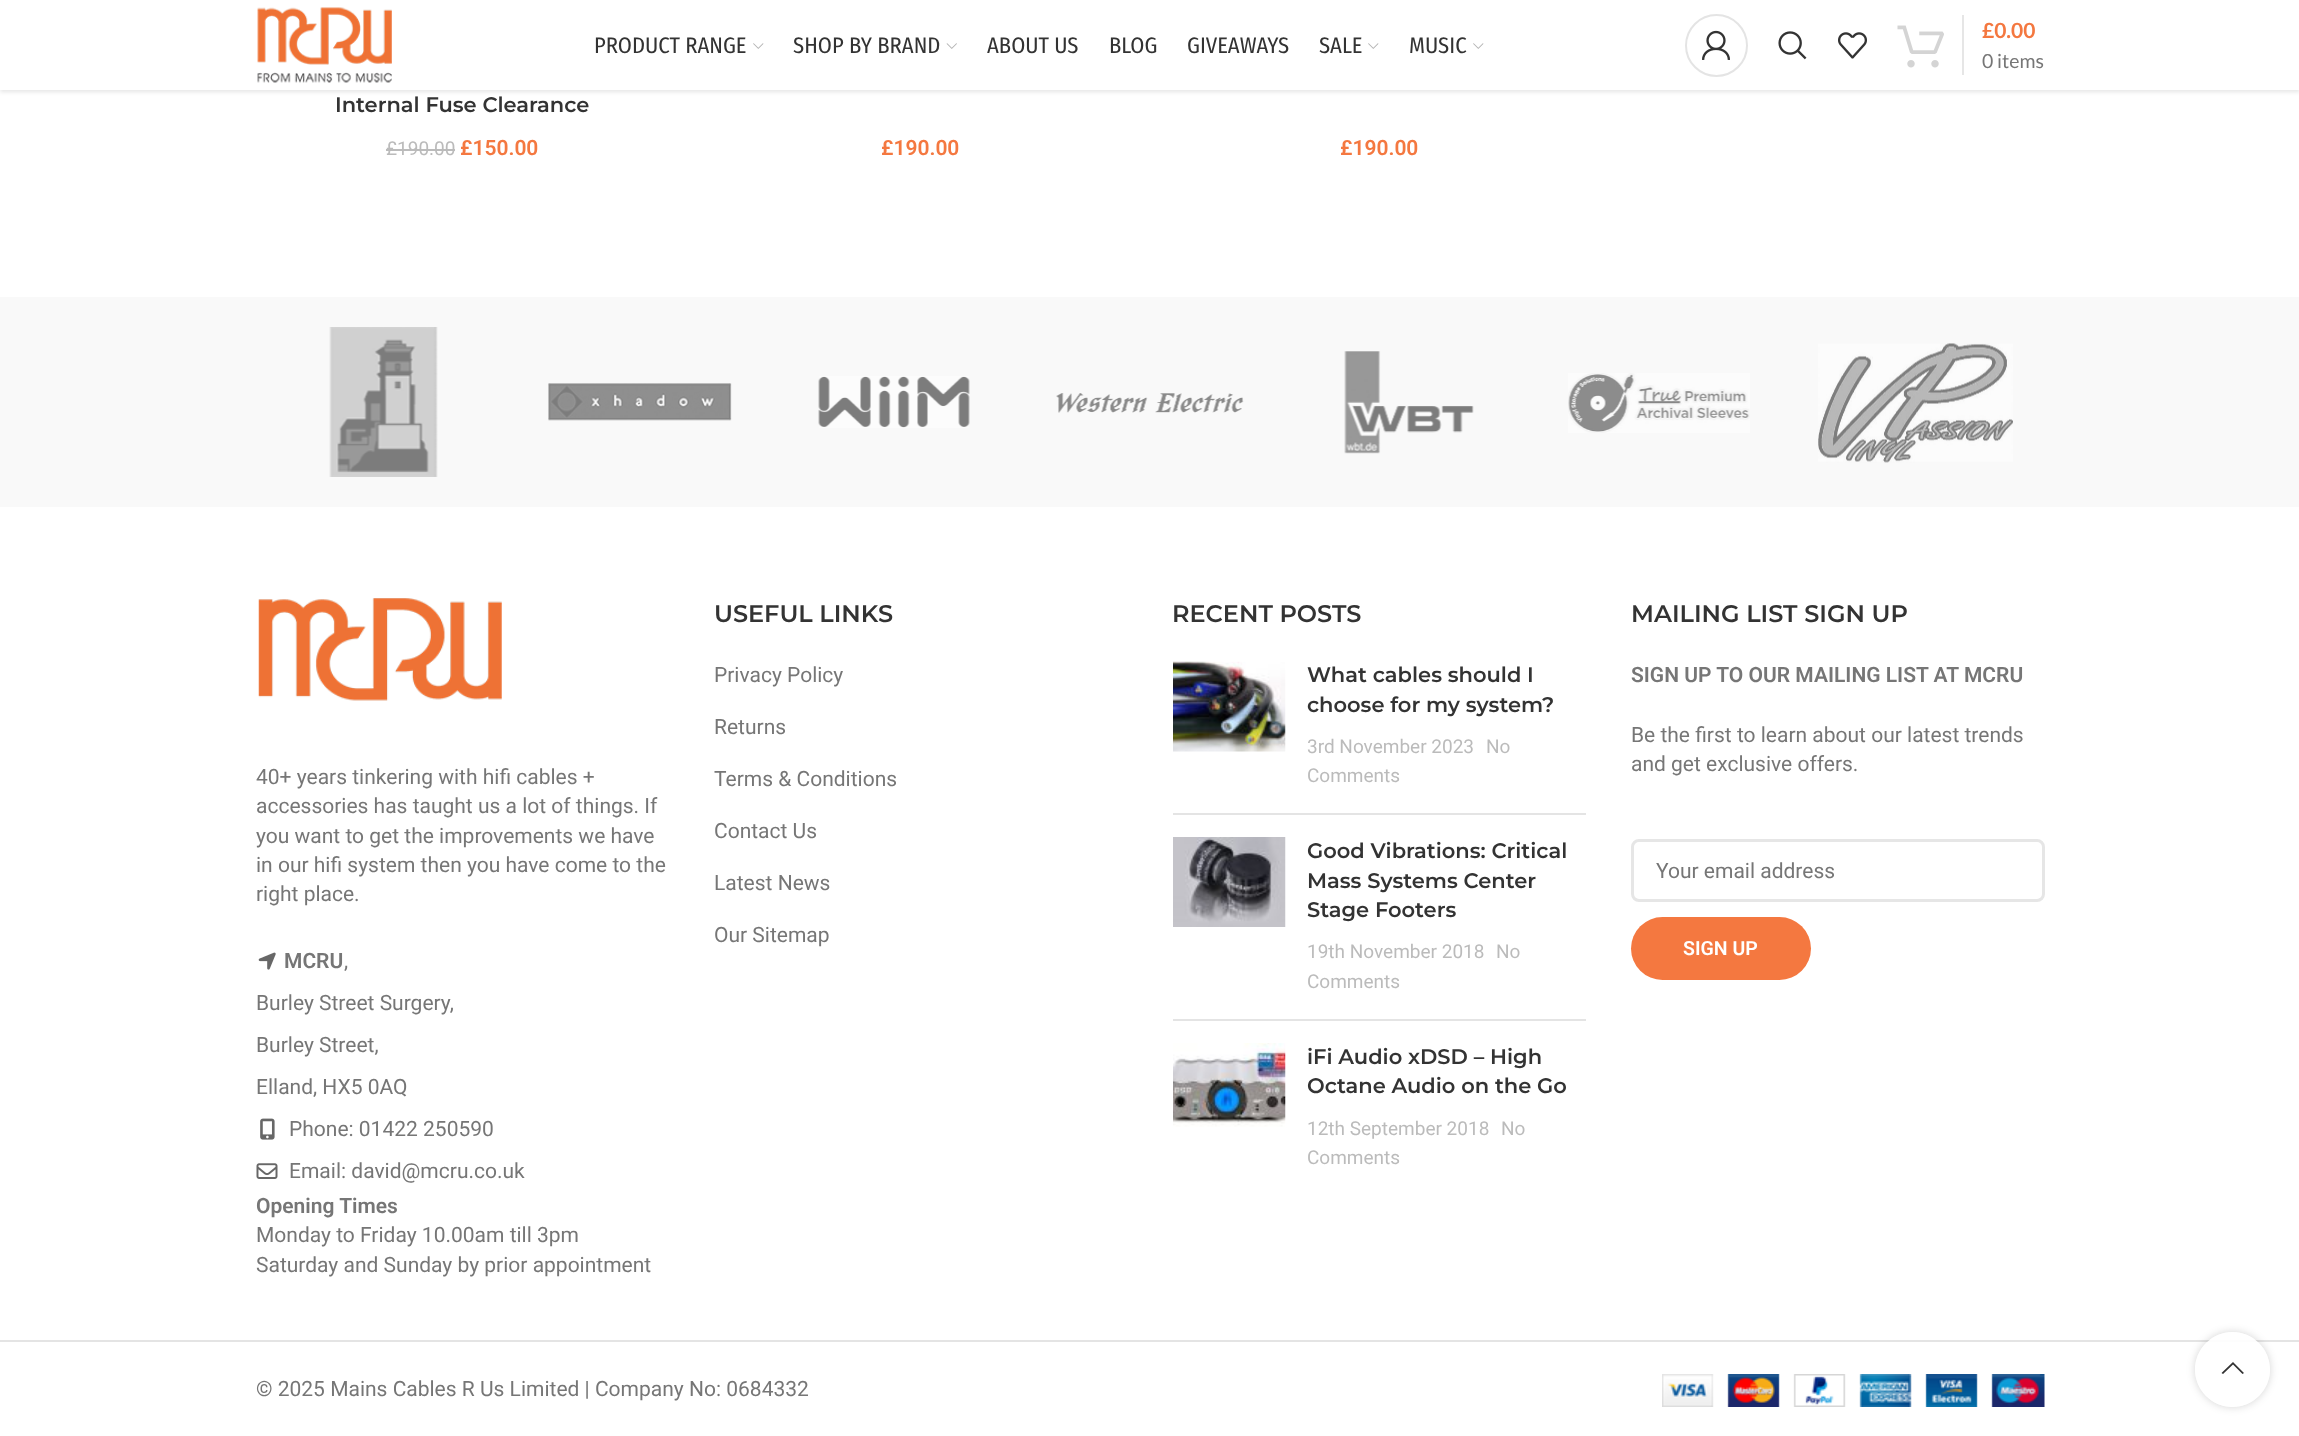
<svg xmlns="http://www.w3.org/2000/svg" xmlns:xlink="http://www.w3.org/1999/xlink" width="2299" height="1436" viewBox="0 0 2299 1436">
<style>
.cls-1{font:22.5px Fira Sans Condensed;fill:#333333}
.cls-2{font:bold 21px Lato;fill:#f47840}
.cls-3{font:19.5px Lato;fill:#767676}
.cls-4{font:600 21px Montserrat;fill:#333333}
.cls-5{font:19px Roboto;fill:#bbbbbb}
.cls-6{font:600 21px Roboto;fill:#f47840}
.cls-7{font:21px Roboto;fill:#767676}
.cls-8{font:600 21px Roboto;fill:#767676}
.cls-9{font:600 24px Montserrat;fill:#333333}
.cls-10{font:600 19.5px Roboto;fill:#ffffff}
</style>
<defs>
<clipPath id="clip1"><path d="M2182 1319H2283V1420H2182ZM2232.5 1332C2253 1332 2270 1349 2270 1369.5C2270 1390 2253 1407 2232.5 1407C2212 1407 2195 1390 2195 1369.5C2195 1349 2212 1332 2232.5 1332Z" clip-rule="evenodd"/></clipPath>
</defs>
<rect width="100%" height="100%" fill="#ffffff"/>
<rect fill="#000000" fill-opacity="0.1" filter="blur(2px)" x="0" y="2" width="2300" height="90"/>
<rect fill="#ffffff" x="0" y="0" width="2299" height="90"/>
<image xlink:href="image0.png" x="257" y="7" width="135" height="76"/>
<image xlink:href="image1.png" x="753" y="43" width="11" height="6"/>
<image xlink:href="image2.png" x="946" y="43" width="11" height="6"/>
<image xlink:href="image1.png" x="1368" y="43" width="11" height="6"/>
<image xlink:href="image1.png" x="1473" y="43" width="11" height="6"/>
<circle fill="none" stroke="#e4e4e4" stroke-width="2" cx="1716.5" cy="45.5" r="30.5"/>
<image xlink:href="image3.png" x="1702" y="30" width="28" height="30"/>
<image xlink:href="image4.png" x="1778" y="31" width="29" height="29"/>
<image xlink:href="image5.png" x="1838" y="32" width="29" height="27"/>
<image xlink:href="image6.png" x="1897" y="25" width="47" height="43"/>
<rect fill="#e6e6e6" x="1962" y="15" width="2" height="60"/>
<rect fill="#bbbbbb" x="386" y="149" width="69" height="2"/>
<rect fill="#f9f9f9" x="0" y="297" width="2299" height="210"/>
<image xlink:href="image7.png" x="329" y="327" width="109" height="150"/>
<image xlink:href="image8.png" x="548" y="383" width="184" height="38"/>
<image xlink:href="image9.png" x="818" y="376" width="152" height="52"/>
<image xlink:href="image10.png" x="1056" y="393" width="188" height="20"/>
<image xlink:href="image11.png" x="1344" y="351" width="130" height="103"/>
<image xlink:href="image12.png" x="1568" y="373" width="182" height="60"/>
<image xlink:href="image13.png" x="1818" y="343" width="195" height="120"/>
<image xlink:href="image14.png" x="258" y="598" width="244" height="103"/>
<image xlink:href="image15.png" x="258" y="952" width="18" height="18"/>
<image xlink:href="image16.png" x="260" y="1118" width="15" height="22"/>
<image xlink:href="image17.png" x="256" y="1163" width="22" height="16"/>
<rect fill="#e4e4e4" x="1173" y="813" width="413" height="2"/>
<image xlink:href="image18.png" x="1173" y="661" width="113" height="91"/>
<rect fill="#e4e4e4" x="1173" y="1019" width="413" height="2"/>
<image xlink:href="image19.png" x="1173" y="837" width="113" height="90"/>
<image xlink:href="image20.png" x="1173" y="1043" width="113" height="84"/>
<rect fill="none" stroke="#e6e6e6" stroke-width="3" x="1632.5" y="840.5" width="411" height="60" rx="6.5"/>
<rect fill="#f47840" x="1631" y="917" width="180" height="63" rx="31.5"/>
<rect fill="#e4e4e4" x="0" y="1340" width="2299" height="2"/>
<image xlink:href="image21.png" x="1662" y="1374" width="383" height="33"/>
<g clip-path="url(#clip1)">
<rect fill="#000000" fill-opacity="0.17" filter="blur(4px)" x="2195" y="1332" width="75" height="75" rx="37.5"/>
</g>
<circle fill="#ffffff" fill-opacity="0.9" cx="2232.5" cy="1369.5" r="37.5"/>
<path fill="#333333" d="M2242.5 1374L2244 1373L2233 1362L2221.5 1373L2223 1374L2233 1364.5Z"/>
<text class="cls-1" x="594" y="53">PRODUCT RANGE</text>
<text class="cls-1" x="793" y="53">SHOP BY BRAND</text>
<text class="cls-1" x="987" y="53">ABOUT US</text>
<text class="cls-1" x="1109" y="53">BLOG</text>
<text class="cls-1" x="1187" y="53">GIVEAWAYS</text>
<text class="cls-1" x="1319" y="53">SALE</text>
<text class="cls-1" x="1409" y="53">MUSIC</text>
<text class="cls-2" x="1982" y="38">£0.00</text>
<text class="cls-3" x="1982" y="68">0 items</text>
<text class="cls-4" x="335" y="112">Internal Fuse Clearance</text>
<text class="cls-5" x="386" y="155">£190.00</text>
<text class="cls-6" x="460" y="155">£150.00</text>
<text class="cls-6" x="881" y="155">£190.00</text>
<text class="cls-6" x="1340" y="155">£190.00</text>
<text class="cls-7"><tspan x="256" y="784">40+ years tinkering with hifi cables +</tspan><tspan x="256" y="813">accessories has taught us a lot of things. If</tspan><tspan x="256" y="843">you want to get the improvements we have</tspan><tspan x="256" y="872">in our hifi system then you have come to the</tspan><tspan x="256" y="901">right place.</tspan></text>
<text class="cls-8" x="284" y="968">MCRU</text>
<text class="cls-7" x="344" y="968">,</text>
<text class="cls-7" x="256" y="1010">Burley Street Surgery,</text>
<text class="cls-7" x="256" y="1052">Burley Street,</text>
<text class="cls-7" x="256" y="1094">Elland, HX5 0AQ</text>
<text class="cls-7" x="289" y="1136">Phone: 01422 250590</text>
<text class="cls-7" x="289" y="1178">Email: david@mcru.co.uk</text>
<text class="cls-8" x="256" y="1213">Opening Times</text>
<text class="cls-7"><tspan x="256" y="1242">Monday to Friday 10.00am till 3pm</tspan><tspan x="256" y="1272">Saturday and Sunday by prior appointment</tspan></text>
<text class="cls-9" x="714" y="622">USEFUL LINKS</text>
<text class="cls-7" x="714" y="682">Privacy Policy</text>
<text class="cls-7" x="714" y="734">Returns</text>
<text class="cls-7" x="714" y="786">Terms &amp; Conditions</text>
<text class="cls-7" x="714" y="838">Contact Us</text>
<text class="cls-7" x="714" y="890">Latest News</text>
<text class="cls-7" x="714" y="942">Our Sitemap</text>
<text class="cls-9" x="1172" y="622">RECENT POSTS</text>
<text class="cls-4"><tspan x="1307" y="682">What cables should I</tspan><tspan x="1307" y="712">choose for my system?</tspan></text>
<text class="cls-5" x="1307" y="753">3rd November 2023</text>
<text class="cls-5" x="1486" y="753">No</text>
<text class="cls-5" x="1307" y="782">Comments</text>
<text class="cls-4"><tspan x="1307" y="858">Good Vibrations: Critical</tspan><tspan x="1307" y="888">Mass Systems Center</tspan><tspan x="1307" y="917">Stage Footers</tspan></text>
<text class="cls-5" x="1307" y="958">19th November 2018</text>
<text class="cls-5" x="1496" y="958">No</text>
<text class="cls-5" x="1307" y="988">Comments</text>
<text class="cls-4"><tspan x="1307" y="1064">iFi Audio xDSD – High</tspan><tspan x="1307" y="1093">Octane Audio on the Go</tspan></text>
<text class="cls-5" x="1307" y="1135">12th September 2018</text>
<text class="cls-5" x="1501" y="1135">No</text>
<text class="cls-5" x="1307" y="1164">Comments</text>
<text class="cls-9" x="1631" y="622">MAILING LIST SIGN UP</text>
<text class="cls-8" x="1631" y="682">SIGN UP TO OUR MAILING LIST AT MCRU</text>
<text class="cls-7"><tspan x="1631" y="742">Be the first to learn about our latest trends</tspan><tspan x="1631" y="771">and get exclusive offers.</tspan></text>
<text class="cls-7" x="1656" y="878">Your email address</text>
<text class="cls-10" x="1683" y="955">SIGN UP</text>
<text class="cls-7" x="256" y="1396">© 2025 Mains Cables R Us Limited | Company No: 0684332</text>
</svg>
